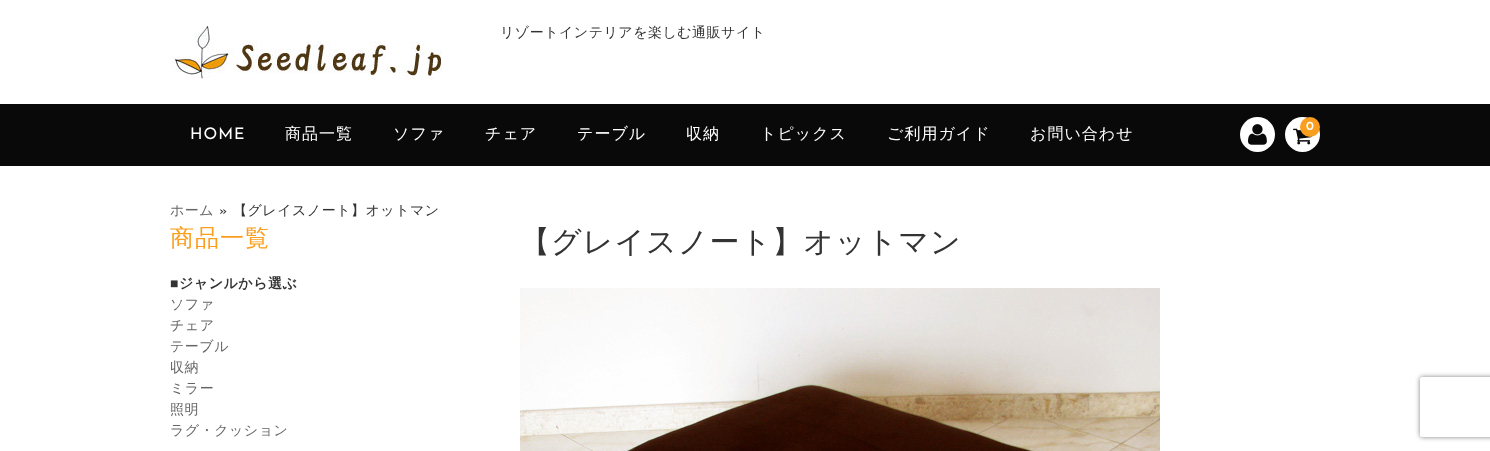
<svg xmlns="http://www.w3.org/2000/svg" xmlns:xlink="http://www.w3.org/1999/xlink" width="1490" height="451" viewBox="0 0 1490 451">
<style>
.cls-1{font:500 14px WenQuanYi Zen Hei;letter-spacing:0.5px;fill:#333333}
.cls-2{font:100 16px Josefin Sans;letter-spacing:1px;fill:#ffffff}
.cls-3{font:500 16px WenQuanYi Zen Hei;letter-spacing:1px;fill:#ffffff}
.cls-4{font:bold 12px Josefin Sans;letter-spacing:1px;fill:#ffffff}
.cls-5{font:500 14px WenQuanYi Zen Hei;letter-spacing:0.5px;fill:#666666}
.cls-6{font:100 14px Josefin Sans;letter-spacing:0.5px;fill:#333333}
.cls-7{font:500 24px WenQuanYi Zen Hei;letter-spacing:1px;fill:#fa9e1f}
.cls-8{font:bold 14px Liberation Sans;letter-spacing:0.5px;fill:#333333}
.cls-9{font:bold 14px WenQuanYi Zen Hei;letter-spacing:0.5px;fill:#333333}
.cls-10{font:500 30px WenQuanYi Zen Hei;letter-spacing:1px;fill:#333333}
</style>
<defs>
<clipPath id="clip1"><path d="M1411 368H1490V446H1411ZM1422 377H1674C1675 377 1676 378 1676 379V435C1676 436 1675 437 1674 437H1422C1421 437 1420 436 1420 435V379C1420 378 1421 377 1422 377Z" clip-rule="evenodd"/></clipPath>
</defs>
<rect width="100%" height="100%" fill="#ffffff"/>
<image xlink:href="image0.png" x="170" y="26" width="272" height="53"/>
<rect fill="#090909" x="0" y="104" width="1490" height="62"/>
<circle fill="#ffffff" cx="1257.5" cy="134.5" r="17.5"/>
<image xlink:href="image1.png" x="1248" y="124" width="19" height="21"/>
<circle fill="#ffffff" cx="1302.5" cy="134.5" r="17.5"/>
<image xlink:href="image2.png" x="1293" y="128" width="19" height="17"/>
<circle fill="#fa9e1f" cx="1310" cy="127" r="10"/>
<image xlink:href="image3.png" x="520" y="288" width="640" height="163"/>
<g clip-path="url(#clip1)">
<rect fill="#808080" filter="blur(2.5px)" x="1420" y="377" width="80" height="60" rx="2"/>
</g>
<text class="cls-1" x="500" y="37">リゾートインテリアを楽しむ通販サイト</text>
<text class="cls-2" x="190" y="139">HOME</text>
<text class="cls-3" x="285" y="139">商品一覧</text>
<text class="cls-3" x="393" y="139">ソファ</text>
<text class="cls-3" x="485" y="139">チェア</text>
<text class="cls-3" x="577" y="139">テーブル</text>
<text class="cls-3" x="686" y="139">収納</text>
<text class="cls-3" x="760" y="139">トピックス</text>
<text class="cls-3" x="887" y="139">ご利用ガイド</text>
<text class="cls-3" x="1030" y="139">お問い合わせ</text>
<text class="cls-4" x="1306" y="130">0</text>
<text class="cls-5" x="170" y="215">ホーム</text>
<text class="cls-6" x="219" y="215">»</text>
<text class="cls-1" x="233" y="215">【グレイスノート】オットマン</text>
<text class="cls-7" x="170" y="246">商品一覧</text>
<text class="cls-8" x="170" y="288">■</text>
<text class="cls-9" x="179" y="288">ジャンルから選ぶ</text>
<text class="cls-5"><tspan x="170" y="309">ソファ</tspan><tspan x="170" y="330">チェア</tspan><tspan x="170" y="351">テーブル</tspan><tspan x="170" y="372">収納</tspan><tspan x="170" y="393">ミラー</tspan><tspan x="170" y="414">照明</tspan><tspan x="170" y="435">ラグ・クッション</tspan></text>
<text class="cls-10" x="520" y="252">【グレイスノート】オットマン</text>
</svg>
